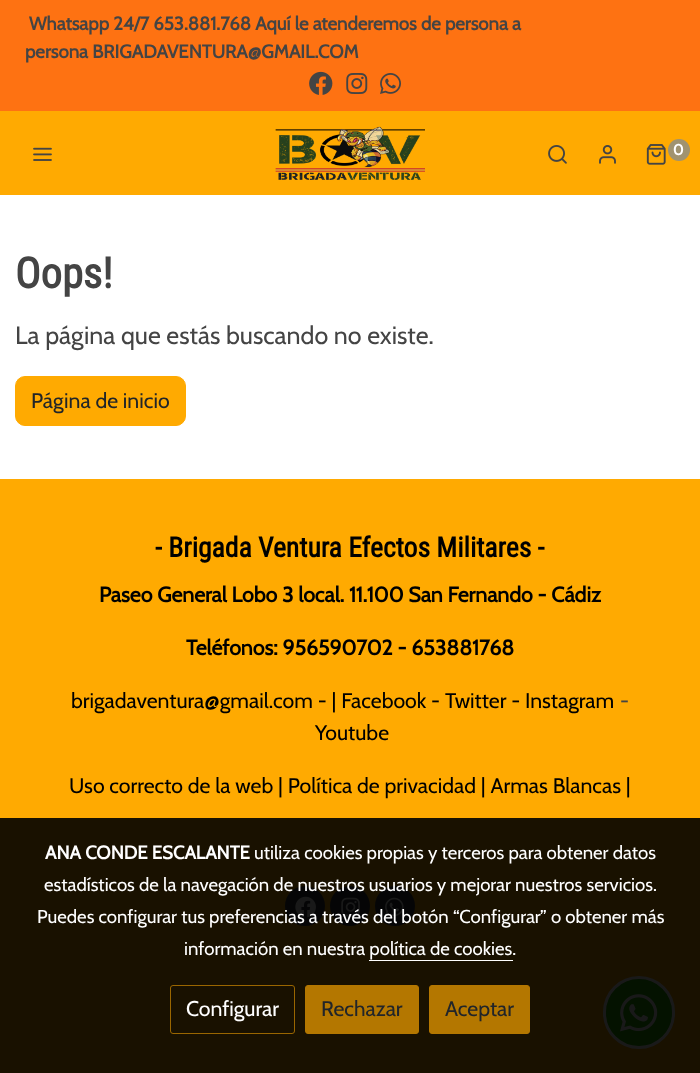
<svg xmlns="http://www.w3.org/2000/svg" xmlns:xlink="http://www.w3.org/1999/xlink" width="700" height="1073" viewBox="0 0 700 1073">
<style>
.cls-1{font:bold 18.6px Cabin;fill:#444444}
.cls-2{font:bold 15px Cabin;fill:#ffffff}
.cls-3{font:bold 42.5px Roboto Condensed;fill:#444444}
.cls-4{font:25px Cabin;fill:#444444}
.cls-5{font:21.25px Cabin;fill:#212529}
.cls-6{font:bold 27.6px Roboto Condensed;fill:#000000}
.cls-7{font:bold 21.25px Cabin;fill:#000000}
.cls-8{font:21.25px Cabin;fill:#000000}
.cls-9{font:21.25px Cabin;fill:#444444}
.cls-10{font:bold 18.6px Cabin;fill:#ffffff}
.cls-11{font:18.6px Cabin;fill:#ffffff}
.cls-12{font:21.25px Cabin;fill:#ffffff}
</style>
<rect width="100%" height="100%" fill="#ffffff"/>
<rect fill="#fe7212" x="0" y="0" width="700" height="111"/>
<image xlink:href="image0.png" x="309" y="71" width="24" height="24"/>
<image xlink:href="image1.png" x="346" y="73" width="22" height="21"/>
<image xlink:href="image2.png" x="380" y="73" width="21" height="21"/>
<rect fill="#ffaa01" x="0" y="111" width="700" height="84"/>
<image xlink:href="image3.png" x="33" y="147" width="19" height="14"/>
<image xlink:href="image4.png" x="275" y="126" width="150" height="54"/>
<image xlink:href="image5.png" x="548" y="145" width="19" height="19"/>
<image xlink:href="image6.png" x="599" y="145" width="17" height="19"/>
<image xlink:href="image7.png" x="646" y="144" width="20" height="21"/>
<circle fill="#a09370" cx="679" cy="150" r="11"/>
<rect fill="#ffaa01" stroke="#ffaa01" x="15.5" y="376.5" width="170" height="49" rx="9.5"/>
<rect fill="#ffaa01" x="0" y="479" width="700" height="594"/>
<circle fill="#343a40" cx="305" cy="906" r="20"/>
<image xlink:href="image8.png" x="295" y="896" width="21" height="22"/>
<circle fill="#343a40" cx="350" cy="906" r="20"/>
<image xlink:href="image9.png" x="341" y="897" width="19" height="20"/>
<circle fill="#343a40" cx="395" cy="906" r="20"/>
<image xlink:href="image10.png" x="385" y="897" width="19" height="20"/>
<rect fill="#29b200" stroke="#ffffff" stroke-width="3" x="604.5" y="977.5" width="69" height="70" rx="34.5"/>
<image xlink:href="image11.png" x="620" y="994" width="38" height="38"/>
<rect fill="#000000" fill-opacity="0.9" x="0" y="818" width="700" height="255"/>
<rect fill="#ffffff" x="369" y="960" width="144" height="1"/>
<rect fill="none" stroke="#9a6600" x="170.5" y="985.5" width="124" height="48" rx="2.5"/>
<rect fill="#b47700" stroke="#b47700" x="305.5" y="985.5" width="113" height="48" rx="2.5"/>
<rect fill="#b47700" stroke="#b47700" x="429.5" y="985.5" width="100" height="48" rx="2.5"/>
<text class="cls-1" x="29" y="30">Whatsapp 24/7 653.881.768 Aquí le atenderemos de persona a</text>
<text class="cls-1" x="25" y="58">persona BRIGADAVENTURA@GMAIL.COM</text>
<text class="cls-2" x="673" y="155">0</text>
<text class="cls-3" x="15" y="288">Oops!</text>
<text class="cls-4" x="15" y="344">La página que estás buscando no existe.</text>
<text class="cls-5" x="31" y="408">Página de inicio</text>
<text class="cls-6" x="155" y="557">- Brigada Ventura Efectos Militares -</text>
<text class="cls-7" x="99" y="602">Paseo General Lobo 3 local. 11.100 San Fernando - Cádiz</text>
<text class="cls-7" x="186" y="655">Teléfonos: 956590702 - 653881768</text>
<text class="cls-8" x="71" y="708">brigadaventura@gmail.com - | Facebook - Twitter - Instagram</text>
<text class="cls-9" x="620" y="708">-</text>
<text class="cls-8" x="315" y="740">Youtube</text>
<text class="cls-8" x="69" y="793">Uso correcto de la web | Política de privacidad | Armas Blancas |</text>
<text class="cls-10" x="45" y="859">ANA CONDE ESCALANTE</text>
<text class="cls-11" x="254" y="859">utiliza cookies propias y terceros para obtener datos</text>
<text class="cls-11" x="44" y="891">estadísticos de la navegación de nuestros usuarios y mejorar nuestros servicios.</text>
<text class="cls-11" x="37" y="923">Puedes configurar tus preferencias a través del botón “Configurar” o obtener más</text>
<text class="cls-11" x="184" y="955">información en nuestra política de cookies.</text>
<text class="cls-12" x="186" y="1016">Configurar</text>
<text class="cls-5" x="321" y="1016">Rechazar</text>
<text class="cls-5" x="445" y="1016">Aceptar</text>
</svg>
